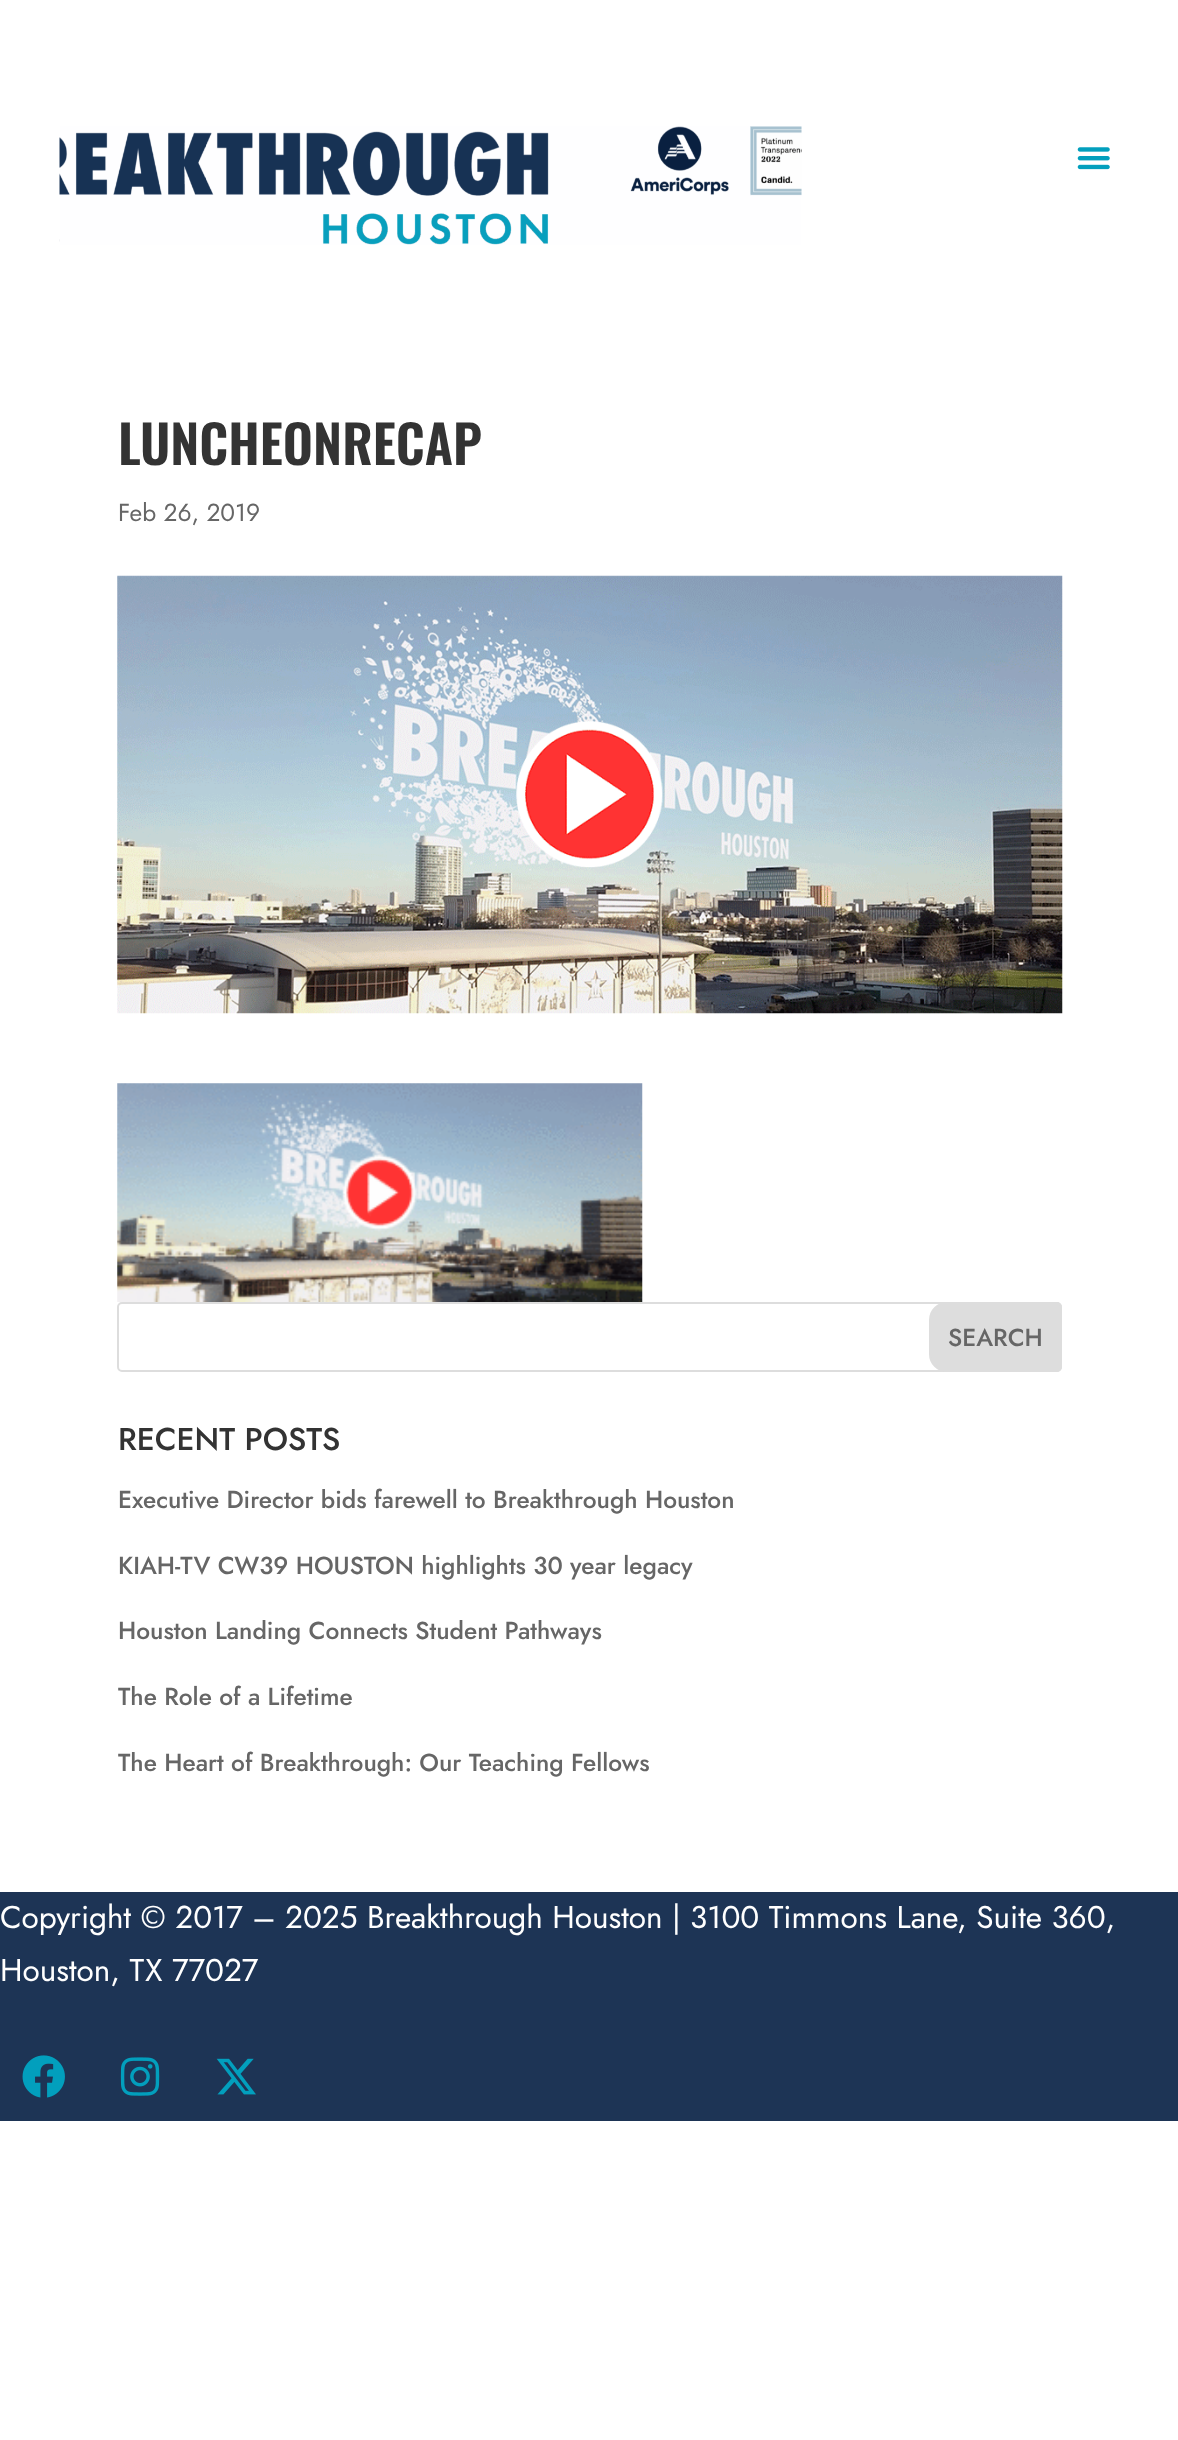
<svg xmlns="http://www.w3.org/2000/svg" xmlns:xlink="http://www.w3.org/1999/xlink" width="1178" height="2440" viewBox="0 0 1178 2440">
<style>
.cls-1{font:600 52.5px Oswald;fill:#333333}
.cls-2{font:24.5px Jost;fill:#666666}
.cls-3{font:500 24.5px Jost;fill:#666666}
.cls-4{font:500 31.5px Jost;fill:#333333}
.cls-5{font:31.5px Jost;fill:#ffffff}
</style>
<rect width="100%" height="100%" fill="#ffffff"/>
<image xlink:href="image0.png" x="59" y="126" width="743" height="119"/>
<image xlink:href="image1.png" x="1077" y="147" width="33" height="23"/>
<image xlink:href="image2.png" x="117" y="575" width="946" height="439"/>
<image xlink:href="image3.png" x="117" y="1083" width="526" height="219"/>
<rect fill="none" stroke="#dddddd" stroke-width="2" x="118" y="1303" width="943" height="68" rx="4"/>
<path fill="#dddddd" stroke="#dddddd" stroke-width="2" d="M947 1303H1057C1059 1303 1061 1305 1061 1307V1367C1061 1369 1059 1371 1057 1371H947C937.5 1371 930 1363.5 930 1354V1320C930 1310.5 937.5 1303 947 1303Z"/>
<rect fill="#1d3455" x="0" y="1892" width="1178" height="229"/>
<image xlink:href="image4.png" x="22" y="2055" width="43" height="43"/>
<image xlink:href="image5.png" x="120" y="2057" width="40" height="39"/>
<image xlink:href="image6.png" x="216" y="2058" width="40" height="37"/>
<text class="cls-1" x="118" y="465">LUNCHEONRECAP</text>
<text class="cls-2" x="118" y="521">Feb 26, 2019</text>
<text class="cls-3" x="948" y="1346">SEARCH</text>
<text class="cls-4" x="118" y="1450">RECENT POSTS</text>
<text class="cls-3" x="118" y="1508">Executive Director bids farewell to Breakthrough Houston</text>
<text class="cls-3" x="118" y="1574">KIAH-TV CW39 HOUSTON highlights 30 year legacy</text>
<text class="cls-3" x="118" y="1639">Houston Landing Connects Student Pathways</text>
<text class="cls-3" x="118" y="1705">The Role of a Lifetime</text>
<text class="cls-3" x="118" y="1771">The Heart of Breakthrough: Our Teaching Fellows</text>
<text class="cls-5"><tspan x="0" y="1928">Copyright © 2017 – 2025 Breakthrough Houston | 3100 Timmons Lane, Suite 360,</tspan><tspan x="0" y="1981">Houston, TX 77027</tspan></text>
</svg>
